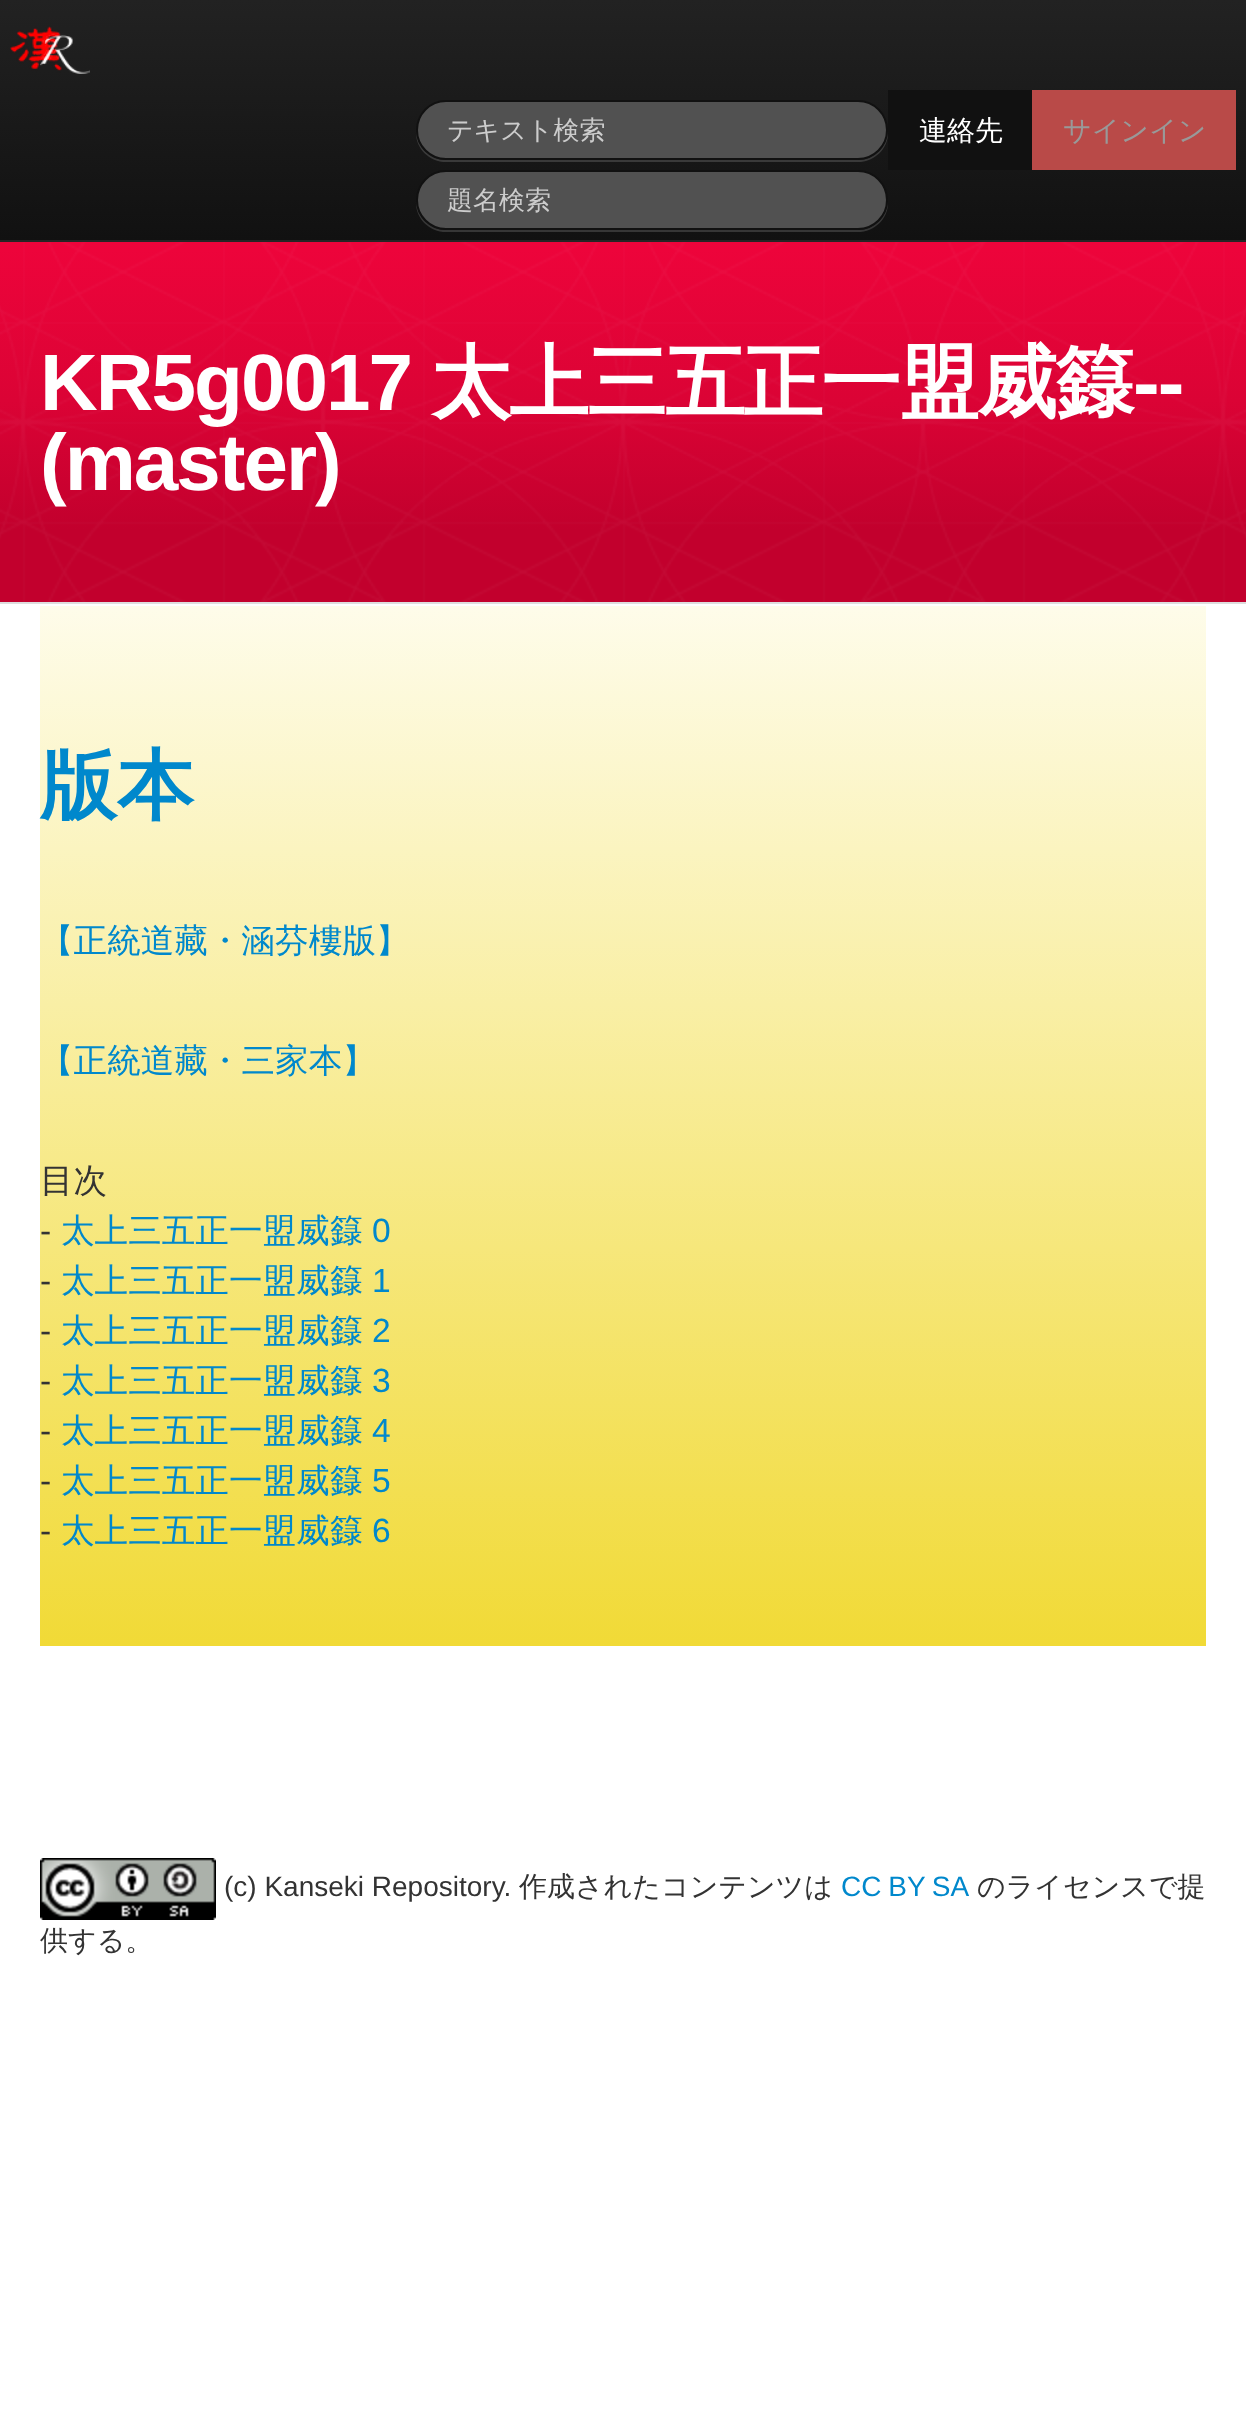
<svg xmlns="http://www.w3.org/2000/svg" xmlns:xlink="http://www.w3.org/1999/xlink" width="1246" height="2425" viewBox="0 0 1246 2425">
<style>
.cls-1{font:500 26px WenQuanYi Zen Hei;fill:#cccccc}
.cls-2{font:500 28px WenQuanYi Zen Hei;fill:#ffffff}
.cls-3{font:500 28px WenQuanYi Zen Hei;fill:#999999}
.cls-4{font:bold 80px Liberation Sans;letter-spacing:-2px;fill:#ffffff}
.cls-5{font:bold 80px WenQuanYi Zen Hei;letter-spacing:-2px;fill:#ffffff}
.cls-6{font:bold 77px WenQuanYi Zen Hei;fill:#0088cc}
.cls-7{font:500 33.6px WenQuanYi Zen Hei;fill:#0088cc}
.cls-8{font:500 33.6px WenQuanYi Zen Hei;fill:#333333}
.cls-9{font:33.6px Liberation Sans;fill:#333333}
.cls-10{font:33.6px Liberation Sans;fill:#0088cc}
.cls-11{font:28px Liberation Sans;fill:#333333}
.cls-12{font:500 28px WenQuanYi Zen Hei;fill:#333333}
.cls-13{font:28px Liberation Sans;fill:#0088cc}
</style>
<defs>
<linearGradient id="g1" gradientUnits="userSpaceOnUse" x1="623" y1="0" x2="623" y2="240"><stop offset="0" stop-color="#222222"/><stop offset="1" stop-color="#111111"/></linearGradient>
<linearGradient id="g2" gradientUnits="userSpaceOnUse" x1="623" y1="242" x2="623" y2="602"><stop offset="0" stop-color="#ee043b"/><stop offset="0.44" stop-color="#db0335"/><stop offset="0.8" stop-color="#c2002d"/><stop offset="1" stop-color="#c2002d"/></linearGradient>
<linearGradient id="g3" gradientUnits="userSpaceOnUse" x1="623" y1="606" x2="623" y2="1646"><stop offset="0" stop-color="#fefcea"/><stop offset="1" stop-color="#f1da36"/></linearGradient>
</defs>
<rect width="100%" height="100%" fill="#ffffff"/>
<rect fill="url(#g1)" x="0" y="0" width="1246" height="240"/>
<rect fill="#252525" x="0" y="240" width="1246" height="2"/>
<image xlink:href="image0.png" x="10" y="26" width="80" height="48"/>
<rect fill="#111111" x="888" y="90" width="144" height="80"/>
<path fill="#3a3a3a" d="M416 131C415 148 429 162 446 162H858C875 162 889 148 888 131C887 147 874 160 858 160H446C430 160 417 147 416 131Z"/>
<rect fill="#515151" stroke="#111111" stroke-width="2" x="417" y="101" width="470" height="58" rx="29"/>
<rect fill="#b94a48" x="1032" y="90" width="204" height="80"/>
<path fill="#363636" d="M416 201C415 218 429 232 446 232H858C875 232 889 218 888 201C887 217 874 230 858 230H446C430 230 417 217 416 201Z"/>
<rect fill="#515151" stroke="#111111" stroke-width="2" x="417" y="171" width="470" height="58" rx="29"/>
<rect fill="url(#g2)" x="0" y="242" width="1246" height="360"/>
<rect fill="#dddddd" x="0" y="602" width="1246" height="2"/>
<image xlink:href="image1.png" x="0" y="242" width="1246" height="360"/>
<rect fill="url(#g3)" x="40" y="606" width="1166" height="1040"/>
<image xlink:href="image2.png" x="40" y="1858" width="176" height="62"/>
<text class="cls-1" x="447" y="139">テキスト検索</text>
<text class="cls-2" x="919" y="140">連絡先</text>
<text class="cls-3" x="1063" y="140">サインイン</text>
<text class="cls-1" x="447" y="209">題名検索</text>
<text class="cls-4" x="40" y="410">KR5g0017</text>
<text class="cls-5" x="431" y="410">太上三五正一盟威籙</text>
<text class="cls-4" x="1133" y="410">--</text>
<text class="cls-4" x="40" y="490">(master)</text>
<text class="cls-6" x="40" y="812">版本</text>
<text class="cls-7" x="40" y="952">【正統道藏・涵芬樓版】</text>
<text class="cls-7" x="40" y="1072">【正統道藏・三家本】</text>
<text class="cls-8" x="40" y="1192">目次</text>
<text class="cls-9" x="40" y="1242">-</text>
<text class="cls-7" x="61" y="1242">太上三五正一盟威籙</text>
<text class="cls-10" x="372" y="1242">0</text>
<text class="cls-9" x="40" y="1292">-</text>
<text class="cls-7" x="61" y="1292">太上三五正一盟威籙</text>
<text class="cls-10" x="372" y="1292">1</text>
<text class="cls-9" x="40" y="1342">-</text>
<text class="cls-7" x="61" y="1342">太上三五正一盟威籙</text>
<text class="cls-10" x="372" y="1342">2</text>
<text class="cls-9" x="40" y="1392">-</text>
<text class="cls-7" x="61" y="1392">太上三五正一盟威籙</text>
<text class="cls-10" x="372" y="1392">3</text>
<text class="cls-9" x="40" y="1442">-</text>
<text class="cls-7" x="61" y="1442">太上三五正一盟威籙</text>
<text class="cls-10" x="372" y="1442">4</text>
<text class="cls-9" x="40" y="1492">-</text>
<text class="cls-7" x="61" y="1492">太上三五正一盟威籙</text>
<text class="cls-10" x="372" y="1492">5</text>
<text class="cls-9" x="40" y="1542">-</text>
<text class="cls-7" x="61" y="1542">太上三五正一盟威籙</text>
<text class="cls-10" x="372" y="1542">6</text>
<text class="cls-11" x="224" y="1896">(c) Kanseki Repository.</text>
<text class="cls-12" x="519" y="1896">作成されたコンテンツは</text>
<text class="cls-13" x="841" y="1896" word-spacing="-1">CC BY SA</text>
<text class="cls-12" x="977" y="1896">のライセンスで提</text>
<text class="cls-12" x="40" y="1950">供する。</text>
</svg>
